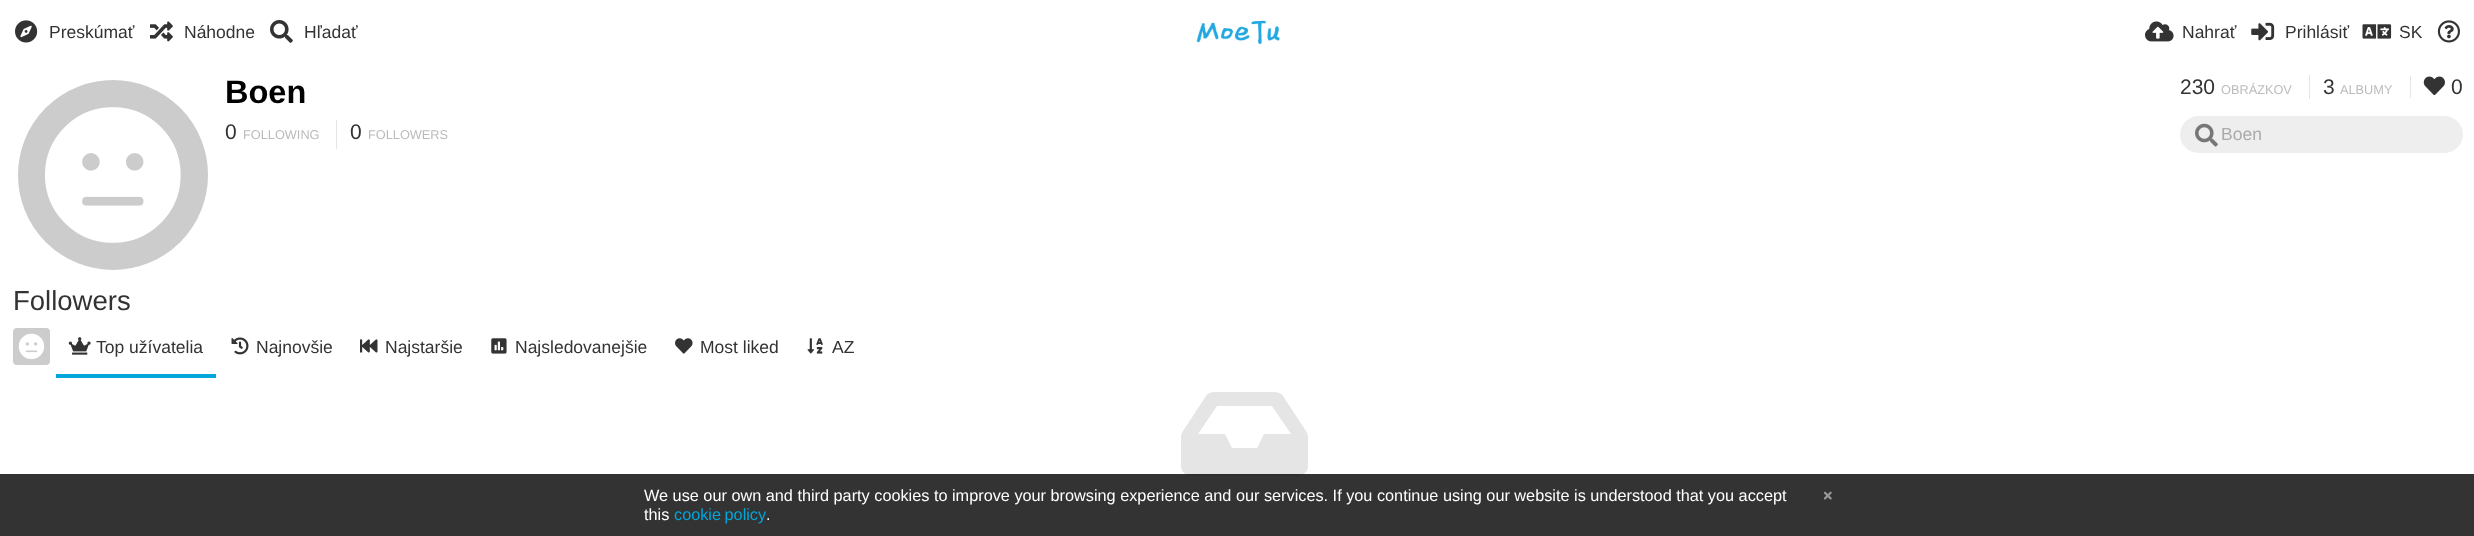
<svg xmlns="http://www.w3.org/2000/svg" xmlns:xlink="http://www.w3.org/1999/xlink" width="2474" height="536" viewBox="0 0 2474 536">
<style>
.cls-1{font:17.5px Liberation Sans;fill:#333333}
.cls-2{font:bold 32.5px Liberation Sans;fill:#000000}
.cls-3{font:21px Liberation Sans;fill:#333333}
.cls-4{font:12.75px Liberation Sans;fill:#bbbbbb}
.cls-5{font:17.5px Liberation Sans;fill:#aaaaaa}
.cls-6{font:27.5px Liberation Sans;fill:#333333}
.cls-7{font:16.27px Liberation Sans;fill:#ffffff}
.cls-8{font:16.27px Liberation Sans;fill:#00a7da}
</style>
<rect width="100%" height="100%" fill="#ffffff"/>
<image xlink:href="image0.png" x="15" y="20" width="23" height="23"/>
<image xlink:href="image1.png" x="150" y="21" width="23" height="21"/>
<image xlink:href="image2.png" x="270" y="20" width="23" height="23"/>
<image xlink:href="image3.png" x="1196" y="20" width="84" height="24"/>
<image xlink:href="image4.png" x="2145" y="21" width="29" height="21"/>
<image xlink:href="image5.png" x="2251" y="22" width="24" height="19"/>
<image xlink:href="image6.png" x="2362" y="24" width="30" height="15"/>
<image xlink:href="image7.png" x="2437" y="20" width="23" height="23"/>
<circle fill="#cccccc" stroke="#ffffff" stroke-width="5" cx="113" cy="175" r="97.5"/>
<image xlink:href="image8.png" x="45" y="107" width="136" height="136"/>
<rect fill="#e5e5e5" x="336" y="120" width="1" height="29"/>
<rect fill="#e5e5e5" x="2309" y="75" width="1" height="24"/>
<rect fill="#e5e5e5" x="2410" y="76" width="1" height="22"/>
<image xlink:href="image9.png" x="2423" y="76" width="22" height="20"/>
<rect fill="#eeeeee" x="2180" y="116" width="283" height="37" rx="18.5"/>
<image xlink:href="image10.png" x="2195" y="123" width="23" height="24"/>
<rect fill="#cccccc" x="13" y="328" width="37" height="37" rx="4"/>
<image xlink:href="image11.png" x="18" y="333" width="27" height="27"/>
<rect fill="#00a7da" x="56" y="374" width="160" height="4"/>
<image xlink:href="image12.png" x="68" y="337" width="23" height="18"/>
<image xlink:href="image13.png" x="231" y="337" width="18" height="18"/>
<image xlink:href="image14.png" x="360" y="339" width="18" height="14"/>
<image xlink:href="image15.png" x="491" y="338" width="16" height="16"/>
<image xlink:href="image16.png" x="675" y="338" width="18" height="16"/>
<image xlink:href="image17.png" x="807" y="338" width="16" height="16"/>
<path fill="#e5e5e5" d="M1306 431C1307 433 1308 435 1308 437V466C1308 469 1307 471 1305 473C1303 475 1300 476 1297 476H1192C1189 476 1186 475 1184 473C1182 471 1181 469 1181 466V437C1181 435 1182 433 1183 431L1206 396C1208 393 1211 392 1215 392H1274C1278 392 1281 393 1283 396ZM1217 406L1198 434H1225L1232 448H1257L1264 434H1291L1272 406Z"/>
<rect fill="#000000" fill-opacity="0.8" x="0" y="474" width="2474" height="62"/>
<image xlink:href="image18.png" x="1823" y="491" width="9" height="9"/>
<text class="cls-1" x="49" y="38">Preskúmať</text>
<text class="cls-1" x="184" y="38">Náhodne</text>
<text class="cls-1" x="304" y="38">Hľadať</text>
<text class="cls-1" x="2182" y="38">Nahrať</text>
<text class="cls-1" x="2285" y="38">Prihlásiť</text>
<text class="cls-1" x="2399" y="38">SK</text>
<text class="cls-2" x="225" y="103">Boen</text>
<text class="cls-3" x="225" y="139">0</text>
<text class="cls-4" x="243" y="139">FOLLOWING</text>
<text class="cls-3" x="350" y="139">0</text>
<text class="cls-4" x="368" y="139">FOLLOWERS</text>
<text class="cls-3" x="2180" y="94">230</text>
<text class="cls-4" x="2221" y="94">OBRÁZKOV</text>
<text class="cls-3" x="2323" y="94">3</text>
<text class="cls-4" x="2340" y="94">ALBUMY</text>
<text class="cls-3" x="2451" y="94">0</text>
<text class="cls-5" x="2221" y="140">Boen</text>
<text class="cls-6" x="13" y="310">Followers</text>
<text class="cls-1" x="96" y="353">Top užívatelia</text>
<text class="cls-1" x="256" y="353">Najnovšie</text>
<text class="cls-1" x="385" y="353">Najstaršie</text>
<text class="cls-1" x="515" y="353">Najsledovanejšie</text>
<text class="cls-1" x="700" y="353">Most liked</text>
<text class="cls-1" x="832" y="353">AZ</text>
<text class="cls-7"><tspan x="644" y="501">We use our own and third party cookies to improve your browsing experience and our services. If you continue using our website is understood that you accept</tspan><tspan x="644" y="520">this</tspan></text>
<text class="cls-8" x="674" y="520" word-spacing="-1">cookie policy</text>
<text class="cls-7" x="766" y="520">.</text>
</svg>
